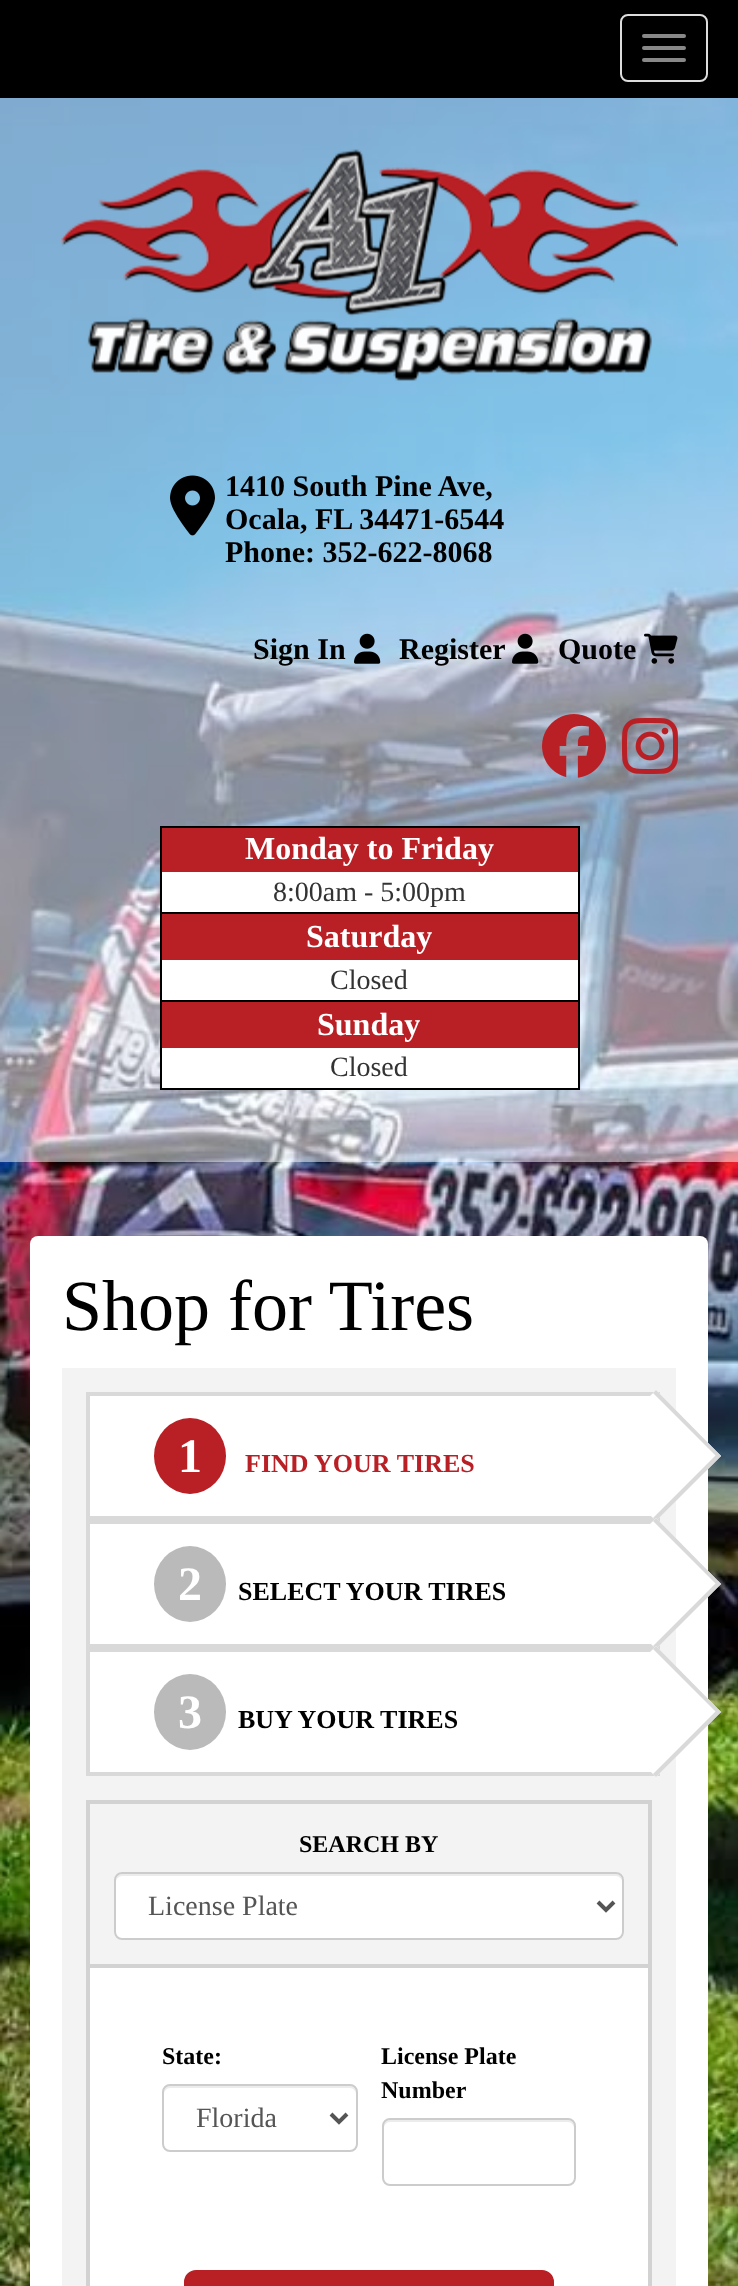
<svg xmlns="http://www.w3.org/2000/svg" xmlns:xlink="http://www.w3.org/1999/xlink" width="738" height="2286" viewBox="0 0 738 2286">
<style>
.cls-1{font:bold 30px Liberation Serif;fill:#000000}
.cls-2{font:bold 32px Liberation Serif;fill:#ffffff}
.cls-3{font:28px Liberation Serif;fill:#333333}
.cls-4{font:72px Liberation Serif;fill:#000000}
.cls-5{font:bold 48px Liberation Serif;fill:#ffffff}
.cls-6{font:bold 26px Liberation Serif;fill:#b92025}
.cls-7{font:bold 26px Liberation Serif;fill:#000000}
.cls-8{font:bold 24px Liberation Serif;fill:#000000}
.cls-9{font:28px Liberation Serif;fill:#555555}
</style>
<rect width="100%" height="100%" fill="#ffffff"/>
<rect fill="#000000" x="0" y="0" width="738" height="98"/>
<rect fill="none" stroke="#dddddd" stroke-width="2" x="621" y="15" width="86" height="66" rx="7"/>
<rect fill="#888888" x="642" y="34" width="44" height="4" rx="2"/>
<rect fill="#888888" x="642" y="46" width="44" height="4" rx="2"/>
<rect fill="#888888" x="642" y="58" width="44" height="4" rx="2"/>
<image xlink:href="image0.png" x="0" y="98" width="738" height="2188"/>
<rect fill="#ffffff" fill-opacity="0.5" x="0" y="98" width="738" height="1064"/>
<image xlink:href="image1.png" x="60" y="149" width="618" height="232"/>
<image xlink:href="image2.png" x="170" y="475" width="45" height="61"/>
<image xlink:href="image3.png" x="354" y="633" width="27" height="31"/>
<image xlink:href="image4.png" x="512" y="633" width="27" height="31"/>
<image xlink:href="image5.png" x="644" y="633" width="34" height="31"/>
<image xlink:href="image6.png" x="542" y="714" width="64" height="64"/>
<image xlink:href="image7.png" x="622" y="718" width="56" height="56"/>
<rect fill="#b92025" x="162" y="828" width="416" height="44"/>
<rect fill="#000000" x="160" y="826" width="420" height="2"/>
<rect fill="#000000" x="578" y="826" width="2" height="86"/>
<rect fill="#000000" x="160" y="826" width="2" height="86"/>
<rect fill="#ffffff" x="162" y="872" width="416" height="40"/>
<rect fill="#b92025" x="162" y="914" width="416" height="46"/>
<rect fill="#000000" x="160" y="912" width="420" height="2"/>
<rect fill="#000000" x="578" y="912" width="2" height="88"/>
<rect fill="#000000" x="160" y="912" width="2" height="88"/>
<rect fill="#ffffff" x="162" y="960" width="416" height="40"/>
<rect fill="#b92025" x="162" y="1002" width="416" height="46"/>
<rect fill="#000000" x="160" y="1000" width="420" height="2"/>
<rect fill="#000000" x="578" y="1000" width="2" height="90"/>
<rect fill="#000000" x="160" y="1000" width="2" height="48"/>
<rect fill="#ffffff" x="162" y="1048" width="416" height="40"/>
<rect fill="#000000" x="160" y="1088" width="420" height="2"/>
<rect fill="#000000" x="160" y="1048" width="2" height="42"/>
<rect fill="#ffffff" x="30" y="1236" width="678" height="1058" rx="8"/>
<rect fill="#f3f3f3" x="62" y="1368" width="614" height="918"/>
<rect fill="#d9d9d9" x="86" y="1392" width="4" height="384"/>
<rect fill="#ffffff" x="90" y="1396" width="561" height="120"/>
<rect fill="#d9d9d9" x="90" y="1392" width="570" height="4"/>
<rect fill="#d9d9d9" x="90" y="1516" width="570" height="8"/>
<ellipse fill="#b92025" cx="190" cy="1456" rx="36" ry="38"/>
<path fill="#ffffff" d="M656 1390L721 1456L656 1521L591 1456Z"/>
<path fill="#d9d9d9" d="M656 1390L721 1456L718 1458L653 1393Z"/>
<path fill="#d9d9d9" d="M718 1453L721 1456L656 1521L653 1518Z"/>
<rect fill="#ffffff" x="90" y="1524" width="561" height="120"/>
<rect fill="#d9d9d9" x="90" y="1644" width="570" height="8"/>
<ellipse fill="#bababa" cx="190" cy="1584" rx="36" ry="38"/>
<path fill="#ffffff" d="M656 1518L721 1584L656 1649L591 1584Z"/>
<path fill="#d9d9d9" d="M656 1518L721 1584L718 1586L653 1521Z"/>
<path fill="#d9d9d9" d="M718 1581L721 1584L656 1649L653 1646Z"/>
<rect fill="#ffffff" x="90" y="1652" width="561" height="120"/>
<rect fill="#d9d9d9" x="90" y="1772" width="570" height="4"/>
<ellipse fill="#bababa" cx="190" cy="1712" rx="36" ry="38"/>
<path fill="#ffffff" d="M656 1646L721 1712L656 1777L591 1712Z"/>
<path fill="#d9d9d9" d="M656 1646L721 1712L718 1714L653 1649Z"/>
<path fill="#d9d9d9" d="M718 1709L721 1712L656 1777L653 1774Z"/>
<rect fill="none" stroke="#d2d2d2" stroke-width="4" x="88" y="1802" width="562" height="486"/>
<rect fill="#d2d2d2" x="90" y="1964" width="558" height="4"/>
<rect fill="#ffffff" x="114" y="1872" width="510" height="68" rx="8"/>
<path fill="#ececec" d="M122 1876H616C619 1876 622 1879 622 1882C622 1878 621 1874 616 1874H122C117 1874 116 1878 116 1882C116 1879 119 1876 122 1876Z"/>
<rect fill="none" stroke="#cccccc" stroke-width="2" x="115" y="1873" width="508" height="66" rx="7"/>
<path fill="none" stroke="#555555" stroke-width="4" d="M598 1902L606 1910L614 1902"/>
<rect fill="#ffffff" x="90" y="1968" width="558" height="318"/>
<path fill="#ececec" d="M170 2088H350C353 2088 356 2091 356 2094V2092C356 2089 353 2086 350 2086H170C167 2086 164 2089 164 2092V2094C164 2091 167 2088 170 2088Z"/>
<rect fill="none" stroke="#cccccc" stroke-width="2" x="163" y="2085" width="194" height="66" rx="7"/>
<path fill="none" stroke="#555555" stroke-width="4" d="M331 2114L339 2122L347 2114"/>
<path fill="#ececec" d="M390 2122H568C571 2122 574 2125 574 2128V2126C574 2123 571 2120 568 2120H390C387 2120 384 2123 384 2126V2128C384 2125 387 2122 390 2122Z"/>
<rect fill="none" stroke="#cccccc" stroke-width="2" x="383" y="2119" width="192" height="66" rx="7"/>
<rect fill="#b92025" stroke="#b92025" stroke-width="2" x="185" y="2271" width="368" height="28" rx="11"/>
<text class="cls-1"><tspan x="225" y="496">1410 South Pine Ave,</tspan><tspan x="225" y="529">Ocala, FL 34471-6544</tspan><tspan x="225" y="562">Phone: 352-622-8068</tspan></text>
<text class="cls-1" x="253" y="659">Sign In</text>
<text class="cls-1" x="399" y="659">Register</text>
<text class="cls-1" x="558" y="659">Quote</text>
<text class="cls-2" x="245" y="859">Monday to Friday</text>
<text class="cls-3" x="273" y="901">8:00am - 5:00pm</text>
<text class="cls-2" x="306" y="947">Saturday</text>
<text class="cls-3" x="330" y="989">Closed</text>
<text class="cls-2" x="317" y="1035">Sunday</text>
<text class="cls-3" x="330" y="1076">Closed</text>
<text class="cls-4" x="62" y="1330">Shop for Tires</text>
<text class="cls-5" x="178" y="1472">1</text>
<text class="cls-6" x="245" y="1472">FIND YOUR TIRES</text>
<text class="cls-5" x="178" y="1600">2</text>
<text class="cls-7" x="238" y="1600">SELECT YOUR TIRES</text>
<text class="cls-5" x="178" y="1728">3</text>
<text class="cls-7" x="238" y="1728">BUY YOUR TIRES</text>
<text class="cls-8" x="299" y="1852">SEARCH BY</text>
<text class="cls-9" x="148" y="1915">License Plate</text>
<text class="cls-8" x="162" y="2064">State:</text>
<text class="cls-9" x="196" y="2127">Florida</text>
<text class="cls-8"><tspan x="381" y="2064">License Plate</tspan><tspan x="381" y="2098">Number</tspan></text>
</svg>
